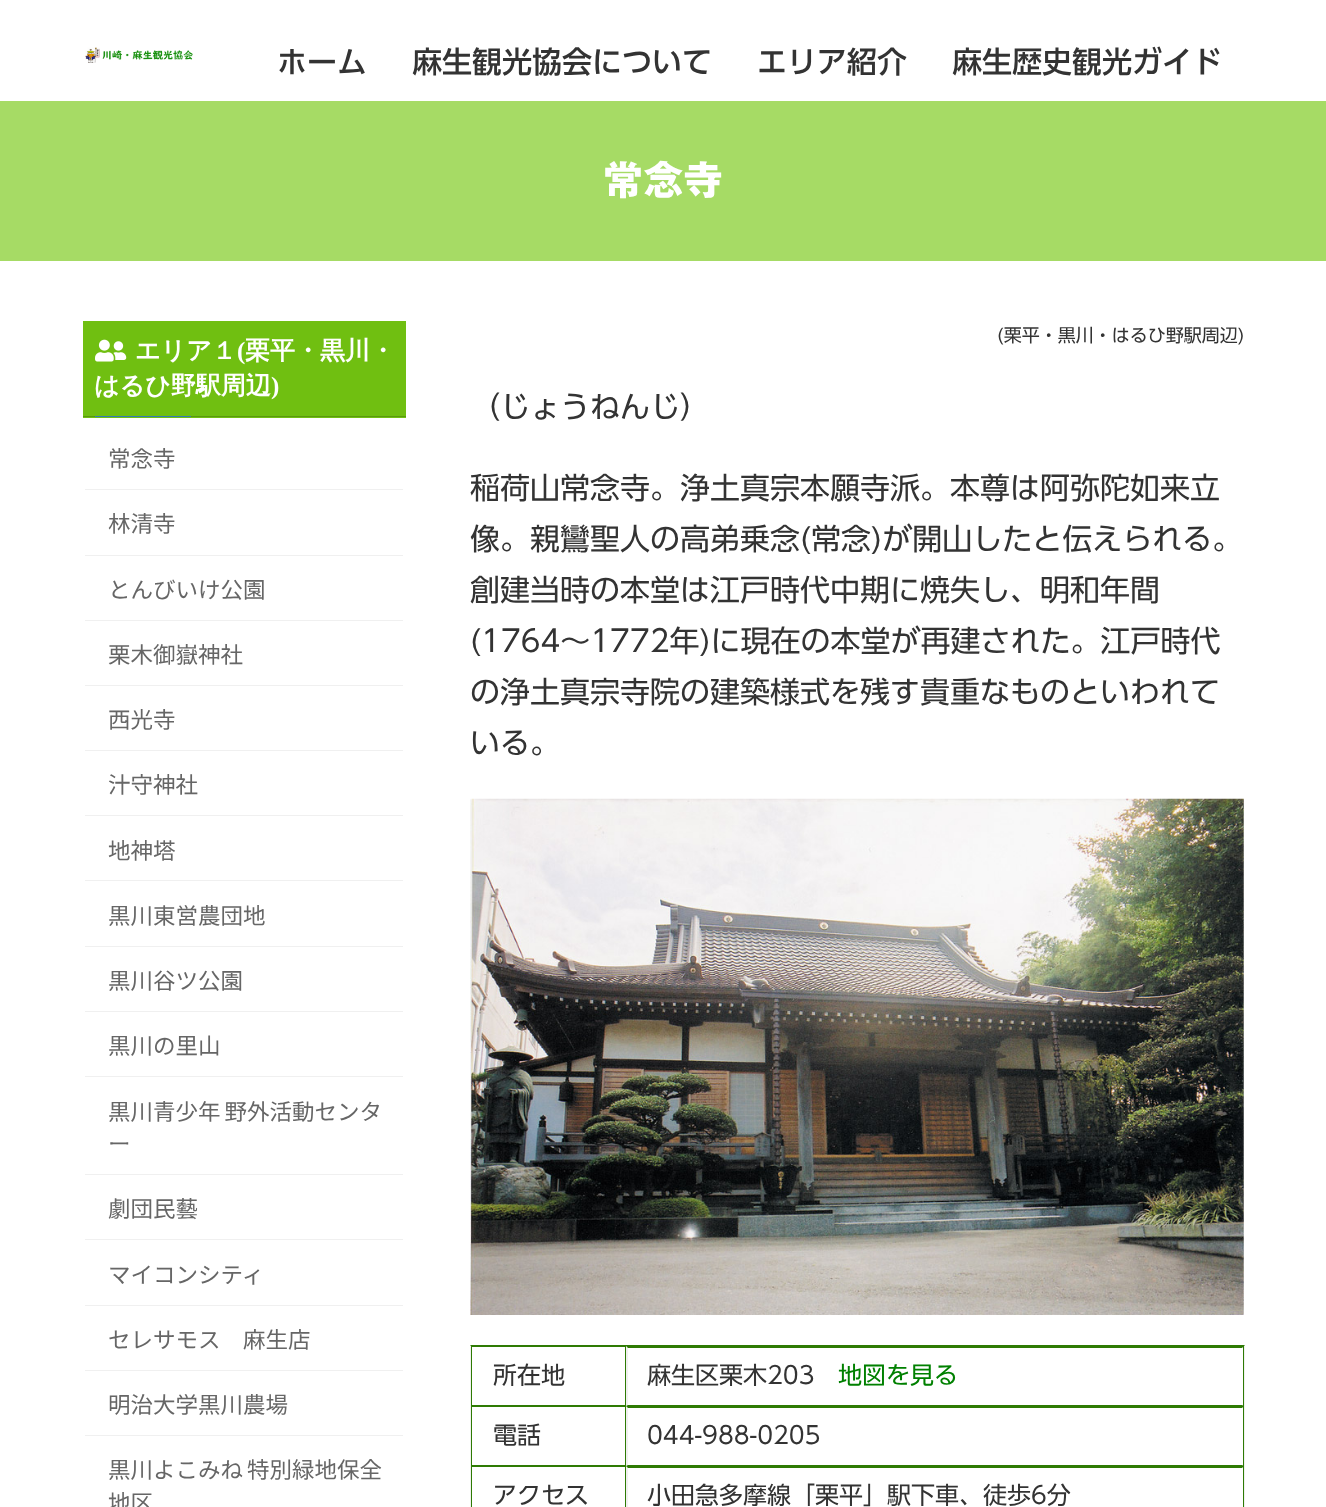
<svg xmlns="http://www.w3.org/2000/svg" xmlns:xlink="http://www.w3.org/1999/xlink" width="1326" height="1507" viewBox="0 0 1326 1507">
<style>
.cls-1{font:500 30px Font;fill:#333333}
.cls-2{font:bold 40px Font;fill:#ffffff}
.cls-3{font:bold 25px WenQuanYi Zen Hei;fill:#ffffff}
.cls-4{font:bold 25px Liberation Serif;fill:#ffffff}
.cls-5{font:22.5px Noto Sans JP;fill:#666666}
.cls-6{font:18px Font;fill:#333333}
.cls-7{font:30px Font;fill:#333333}
.cls-8{font:24px Font;fill:#333333}
.cls-9{font:24px Font;fill:#008000}
</style>
<rect width="100%" height="100%" fill="#ffffff"/>
<image xlink:href="image0.png" x="85" y="47" width="108" height="16"/>
<rect fill="#a6db65" x="0" y="101" width="1326" height="160"/>
<rect fill="#70bf11" x="83" y="321" width="323" height="97"/>
<rect fill="#5a990e" x="83" y="416" width="323" height="1"/>
<image xlink:href="image1.png" x="95" y="339" width="32" height="23"/>
<rect fill="#337ab7" x="95" y="416" width="96" height="1"/>
<rect fill="#f0f0f0" x="85" y="489" width="318" height="1"/>
<rect fill="#f0f0f0" x="85" y="555" width="318" height="1"/>
<rect fill="#f0f0f0" x="85" y="620" width="318" height="1"/>
<rect fill="#f0f0f0" x="85" y="685" width="318" height="1"/>
<rect fill="#f0f0f0" x="85" y="750" width="318" height="1"/>
<rect fill="#f0f0f0" x="85" y="815" width="318" height="1"/>
<rect fill="#f0f0f0" x="85" y="880" width="318" height="1"/>
<rect fill="#f0f0f0" x="85" y="946" width="318" height="1"/>
<rect fill="#f0f0f0" x="85" y="1011" width="318" height="1"/>
<rect fill="#f0f0f0" x="85" y="1076" width="318" height="1"/>
<rect fill="#f0f0f0" x="85" y="1174" width="318" height="1"/>
<rect fill="#f0f0f0" x="85" y="1239" width="318" height="1"/>
<rect fill="#f0f0f0" x="85" y="1305" width="318" height="1"/>
<rect fill="#f0f0f0" x="85" y="1370" width="318" height="1"/>
<rect fill="#f0f0f0" x="85" y="1435" width="318" height="1"/>
<image xlink:href="image2.png" x="470" y="798" width="774" height="517"/>
<path fill="#2e7a04" d="M470 1345H1245L1244 1346H471Z"/>
<path fill="#000000" fill-opacity="0.06" d="M1245 1345V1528L1244 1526V1346Z"/>
<path fill="#000000" fill-opacity="0.06" d="M470 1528V1345L471 1346V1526Z"/>
<rect fill="none" stroke="#2e7a04" x="471.5" y="1346.5" width="154" height="59"/>
<path fill="#2e7a04" d="M626 1346H1244L1242 1348H628Z"/>
<rect fill="#2e7a04" x="1243" y="1346" width="1" height="60"/>
<path fill="#2e7a04" d="M1244 1406H626L628 1405H1242Z"/>
<path fill="#000000" fill-opacity="0.06" d="M626 1406V1346L628 1348V1405Z"/>
<rect fill="none" stroke="#2e7a04" x="471.5" y="1406.5" width="154" height="59"/>
<path fill="#2e7a04" d="M626 1406H1244L1242 1408H628Z"/>
<rect fill="#2e7a04" x="1243" y="1406" width="1" height="60"/>
<path fill="#2e7a04" d="M1244 1466H626L628 1465H1242Z"/>
<path fill="#000000" fill-opacity="0.06" d="M626 1466V1406L628 1408V1465Z"/>
<rect fill="none" stroke="#2e7a04" x="471.5" y="1466.5" width="154" height="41"/>
<path fill="#2e7a04" d="M626 1466H1244L1242 1468H628Z"/>
<rect fill="#2e7a04" x="1243" y="1466" width="1" height="41"/>
<path fill="#000000" fill-opacity="0.06" d="M626 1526V1466L628 1468V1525Z"/>
<text class="cls-1" x="277" y="73">ホーム</text>
<text class="cls-1" x="412" y="73">麻生観光協会について</text>
<text class="cls-1" x="757" y="73">エリア紹介</text>
<text class="cls-1" x="952" y="73">麻生歴史観光ガイド</text>
<text class="cls-2" x="603" y="195">常念寺</text>
<text class="cls-3" x="135" y="359">エリア１</text>
<text class="cls-4" x="237" y="359">(</text>
<text class="cls-3" x="245" y="359">栗平・黒川・</text>
<text class="cls-3" x="94" y="394">はるひ野駅周辺</text>
<text class="cls-4" x="271" y="394">)</text>
<text class="cls-5" x="108" y="467">常念寺</text>
<text class="cls-5" x="108" y="532">林清寺</text>
<text class="cls-5" x="108" y="598">とんびいけ公園</text>
<text class="cls-5" x="108" y="663">栗木御嶽神社</text>
<text class="cls-5" x="108" y="728">西光寺</text>
<text class="cls-5" x="108" y="793">汁守神社</text>
<text class="cls-5" x="108" y="859">地神塔</text>
<text class="cls-5" x="108" y="924">黒川東営農団地</text>
<text class="cls-5" x="108" y="989">黒川谷ツ公園</text>
<text class="cls-5" x="108" y="1054">黒川の里山</text>
<text class="cls-5"><tspan x="108" y="1120" word-spacing="-1">黒川青少年 野外活動センタ</tspan><tspan x="108" y="1152">ー</tspan></text>
<text class="cls-5" x="108" y="1217">劇団民藝</text>
<text class="cls-5" x="108" y="1283">マイコンシティ</text>
<text class="cls-5" x="108" y="1348">セレサモス　麻生店</text>
<text class="cls-5" x="108" y="1413">明治大学黒川農場</text>
<text class="cls-5"><tspan x="108" y="1478" word-spacing="-1">黒川よこみね 特別緑地保全</tspan><tspan x="108" y="1511">地区</tspan></text>
<text class="cls-6" x="997" y="342">(栗平・黒川・はるひ野駅周辺)</text>
<text class="cls-7" x="470" y="418">（じょうねんじ）</text>
<text class="cls-7"><tspan x="470" y="499">稲荷山常念寺。浄土真宗本願寺派。本尊は阿弥陀如来立</tspan><tspan x="470" y="550">像。親鸞聖人の高弟乗念(常念)が開山したと伝えられる。</tspan><tspan x="470" y="601">創建当時の本堂は江戸時代中期に焼失し、明和年間</tspan><tspan x="470" y="652">(1764～1772年)に現在の本堂が再建された。江戸時代</tspan><tspan x="470" y="703">の浄土真宗寺院の建築様式を残す貴重なものといわれて</tspan><tspan x="470" y="754">いる。</tspan></text>
<text class="cls-8" x="493" y="1384">所在地</text>
<text class="cls-8" x="647" y="1384">麻生区栗木203</text>
<text class="cls-9" x="838" y="1384">地図を見る</text>
<text class="cls-8" x="493" y="1444">電話</text>
<text class="cls-8" x="647" y="1444">044-988-0205</text>
<text class="cls-8" x="493" y="1504">アクセス</text>
<text class="cls-8" x="647" y="1504">小田急多摩線「栗平」駅下車、徒歩6分</text>
</svg>
